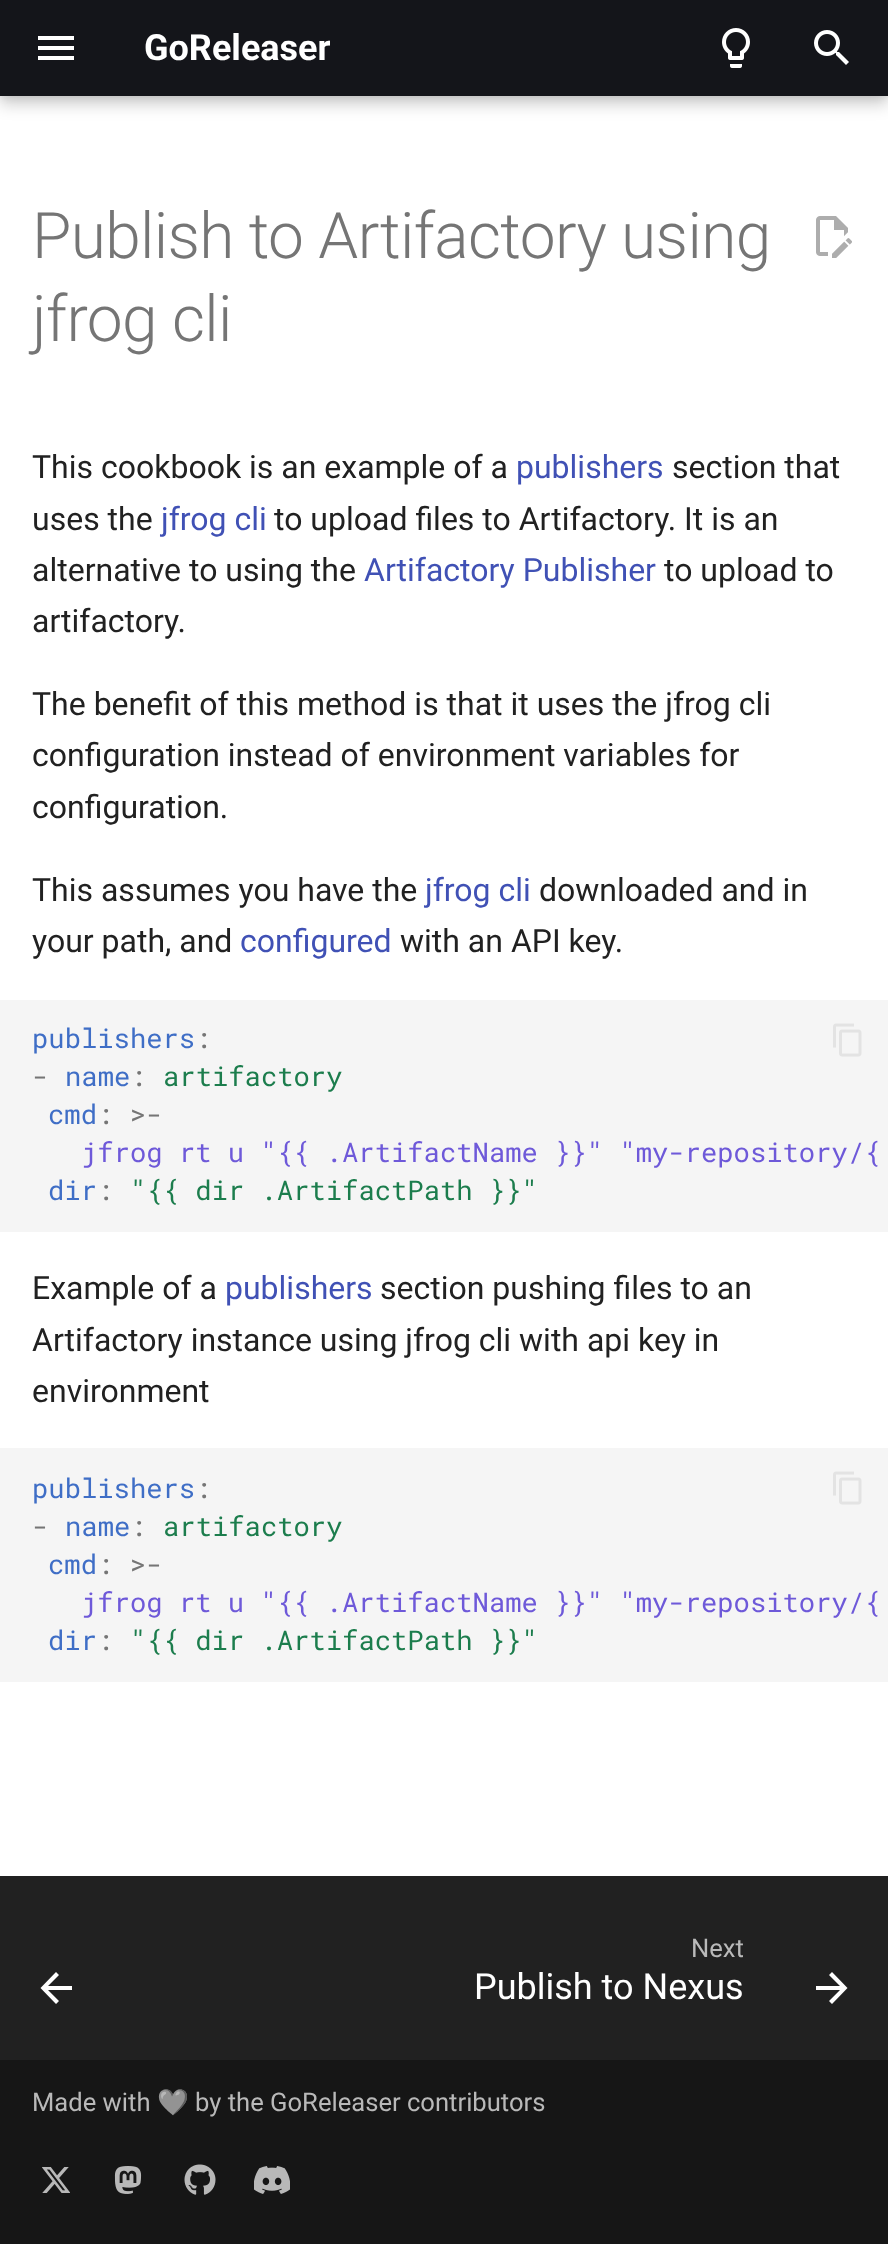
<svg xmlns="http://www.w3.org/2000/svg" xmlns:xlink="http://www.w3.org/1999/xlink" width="888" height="2244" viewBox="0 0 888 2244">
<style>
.cls-1{font:bold 36px Roboto;fill:#ffffff}
.cls-2{font:300 64px Roboto;letter-spacing:-0.65px;fill:#757575}
.cls-3{font:32px Roboto;fill:#212121}
.cls-4{font:32px Roboto;fill:#4051b5}
.cls-5{font:27.2px Roboto Mono;fill:#3f6ec6}
.cls-6{font:27.2px Roboto Mono;fill:#757575}
.cls-7{font:27.2px Roboto Mono;fill:#1c7d4d}
.cls-8{font:27.2px Roboto Mono;fill:#6e59d9}
.cls-9{font:25.6px Roboto;fill:#b9b9b9}
.cls-10{font:36px Roboto;fill:#ffffff}
.cls-11{font:25.6px Noto Color Emoji;fill:#b9b9b9}
</style>
<defs>
<clipPath id="clip1"><rect x="144" y="0" width="186" height="96"/></clipPath>
</defs>
<rect width="100%" height="100%" fill="#ffffff"/>
<rect fill="#000000" fill-opacity="0.2" filter="blur(8px)" x="0" y="8" width="888" height="96"/>
<rect fill="#000000" fill-opacity="0.1" filter="blur(4px)" x="0" y="0" width="888" height="96"/>
<rect fill="#14151a" x="0" y="0" width="888" height="96"/>
<path fill="#ffffff" d="M38 36H74V40H38ZM38 46H74V50H38ZM38 56H74V60H38Z"/>
<image xlink:href="image0.png" x="722" y="28" width="28" height="40"/>
<image xlink:href="image1.png" x="814" y="30" width="35" height="35"/>
<image xlink:href="image2.png" x="816" y="216" width="36" height="42"/>
<rect fill="#f5f5f5" x="0" y="1000" width="888" height="232"/>
<image xlink:href="image3.png" x="833" y="1023" width="29" height="34"/>
<rect fill="#f5f5f5" x="0" y="1448" width="888" height="234"/>
<image xlink:href="image3.png" x="833" y="1471" width="29" height="34"/>
<rect fill="#212121" x="0" y="1876" width="888" height="184"/>
<path fill="#ffffff" d="M72 1986V1990H48L59 2001L56 2004L40.5 1988L56 1972L59 1975L48 1986Z"/>
<path fill="#ffffff" d="M816 1986V1990H840L829 2001L832 2004L847.5 1988L832 1972L829 1975L840 1986Z"/>
<rect fill="#161616" x="0" y="2060" width="888" height="184"/>
<image xlink:href="image4.png" x="42" y="2167" width="28" height="26"/>
<image xlink:href="image5.png" x="114" y="2166" width="28" height="28"/>
<image xlink:href="image6.png" x="184" y="2164" width="32" height="31"/>
<image xlink:href="image7.png" x="254" y="2166" width="36" height="28"/>
<g clip-path="url(#clip1)">
<text class="cls-1" x="144" y="60">GoReleaser</text>
</g>
<text class="cls-2"><tspan x="32" y="258">Publish to Artifactory using</tspan><tspan x="32" y="341">jfrog cli</tspan></text>
<text class="cls-3" x="32" y="478">This cookbook is an example of a</text>
<text class="cls-4" x="516" y="478">publishers</text>
<text class="cls-3" x="672" y="478">section that</text>
<text class="cls-3" x="32" y="530">uses the</text>
<text class="cls-4" x="161" y="530">jfrog cli</text>
<text class="cls-3" x="274" y="530">to upload files to Artifactory. It is an</text>
<text class="cls-3" x="32" y="581">alternative to using the</text>
<text class="cls-4" x="364" y="581">Artifactory Publisher</text>
<text class="cls-3" x="664" y="581">to upload to</text>
<text class="cls-3" x="32" y="632">artifactory.</text>
<text class="cls-3"><tspan x="32" y="715">The benefit of this method is that it uses the jfrog cli</tspan><tspan x="32" y="766">configuration instead of environment variables for</tspan><tspan x="32" y="818">configuration.</tspan></text>
<text class="cls-3" x="32" y="901">This assumes you have the</text>
<text class="cls-4" x="425" y="901">jfrog cli</text>
<text class="cls-3" x="539" y="901">downloaded and in</text>
<text class="cls-3" x="32" y="952">your path, and</text>
<text class="cls-4" x="240" y="952">configured</text>
<text class="cls-3" x="400" y="952">with an API key.</text>
<text class="cls-5" x="32" y="1048">publishers</text>
<text class="cls-6" x="195" y="1048">:</text>
<text class="cls-6" x="32" y="1086">-</text>
<text class="cls-5" x="65" y="1086">name</text>
<text class="cls-6" x="130" y="1086">:</text>
<text class="cls-7" x="163" y="1086">artifactory</text>
<text class="cls-5" x="48" y="1124">cmd</text>
<text class="cls-6" x="97" y="1124">: &gt;-</text>
<text class="cls-8" x="81" y="1162">jfrog rt u "{{ .ArtifactName }}" "my-repository/{</text>
<text class="cls-5" x="48" y="1200">dir</text>
<text class="cls-6" x="97" y="1200">:</text>
<text class="cls-7" x="130" y="1200">"{{ dir .ArtifactPath }}"</text>
<text class="cls-3" x="32" y="1299">Example of a</text>
<text class="cls-4" x="225" y="1299">publishers</text>
<text class="cls-3" x="380" y="1299">section pushing files to an</text>
<text class="cls-3"><tspan x="32" y="1351">Artifactory instance using jfrog cli with api key in</tspan><tspan x="32" y="1402">environment</tspan></text>
<text class="cls-5" x="32" y="1498">publishers</text>
<text class="cls-6" x="195" y="1498">:</text>
<text class="cls-6" x="32" y="1536">-</text>
<text class="cls-5" x="65" y="1536">name</text>
<text class="cls-6" x="130" y="1536">:</text>
<text class="cls-7" x="163" y="1536">artifactory</text>
<text class="cls-5" x="48" y="1574">cmd</text>
<text class="cls-6" x="97" y="1574">: &gt;-</text>
<text class="cls-8" x="81" y="1612">jfrog rt u "{{ .ArtifactName }}" "my-repository/{</text>
<text class="cls-5" x="48" y="1650">dir</text>
<text class="cls-6" x="97" y="1650">:</text>
<text class="cls-7" x="130" y="1650">"{{ dir .ArtifactPath }}"</text>
<text class="cls-9" x="691" y="1957">Next</text>
<text class="cls-10" x="474" y="1999">Publish to Nexus</text>
<text class="cls-9" x="32" y="2111">Made with</text>
<text class="cls-11" x="157" y="2111">🩶</text>
<text class="cls-9" x="195" y="2111">by the GoReleaser contributors</text>
</svg>
